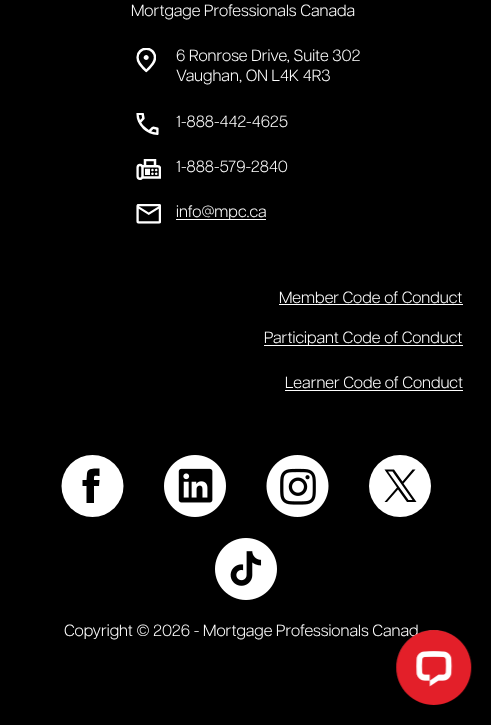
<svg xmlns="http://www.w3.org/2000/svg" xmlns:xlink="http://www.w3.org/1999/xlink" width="491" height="725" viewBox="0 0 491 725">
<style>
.cls-1{font:300 16.25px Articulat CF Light;fill:#ffffff}
</style>
<rect width="100%" height="100%" fill="#000000"/>
<image xlink:href="image0.png" x="136" y="48" width="20" height="25"/>
<image xlink:href="image1.png" x="136" y="113" width="23" height="22"/>
<image xlink:href="image2.png" x="136" y="159" width="25" height="21"/>
<image xlink:href="image3.png" x="136" y="204" width="25" height="20"/>
<rect fill="#ffffff" x="176" y="219" width="90" height="1"/>
<rect fill="#ffffff" x="279" y="304" width="184" height="1"/>
<rect fill="#ffffff" x="264" y="345" width="199" height="1"/>
<rect fill="#ffffff" x="285" y="390" width="178" height="1"/>
<circle fill="#ffffff" cx="92.5" cy="486" r="31"/>
<path fill="#000000" d="M86.5 480H82.5V486H86.5V503H94V486H99L99.5 480H94C94 474.5 94 476 99.5 476V468.5C95 468.5 87.5 467.5 87 473.5Z"/>
<image xlink:href="image4.png" x="164" y="455" width="62" height="62"/>
<image xlink:href="image5.png" x="266" y="455" width="63" height="62"/>
<circle fill="#ffffff" cx="400" cy="486" r="31"/>
<path fill="#000000" d="M403.5 483.5L415.5 469.5H412.5L402.5 481.5L394 469.5H384.5L397 487.5L384.5 502H387L398 489.5L407 502H416.5M388 471.5H392.5L412.5 500H408.5"/>
<image xlink:href="image6.png" x="215" y="538" width="62" height="62"/>
<text class="cls-1" x="131" y="16">Mortgage Professionals Canada</text>
<text class="cls-1"><tspan x="176" y="61">6 Ronrose Drive, Suite 302</tspan><tspan x="176" y="81">Vaughan, ON L4K 4R3</tspan></text>
<text class="cls-1" x="176" y="127">1-888-442-4625</text>
<text class="cls-1" x="176" y="172">1-888-579-2840</text>
<text class="cls-1" x="176" y="217">info@mpc.ca</text>
<text class="cls-1" x="279" y="303">Member Code of Conduct</text>
<text class="cls-1" x="264" y="343">Participant Code of Conduct</text>
<text class="cls-1" x="285" y="388">Learner Code of Conduct</text>
<text class="cls-1" x="64" y="636">Copyright © 2026 - Mortgage Professionals Canad</text>
<image xlink:href="image7.png" x="396" y="630" width="76" height="75"/>
</svg>
